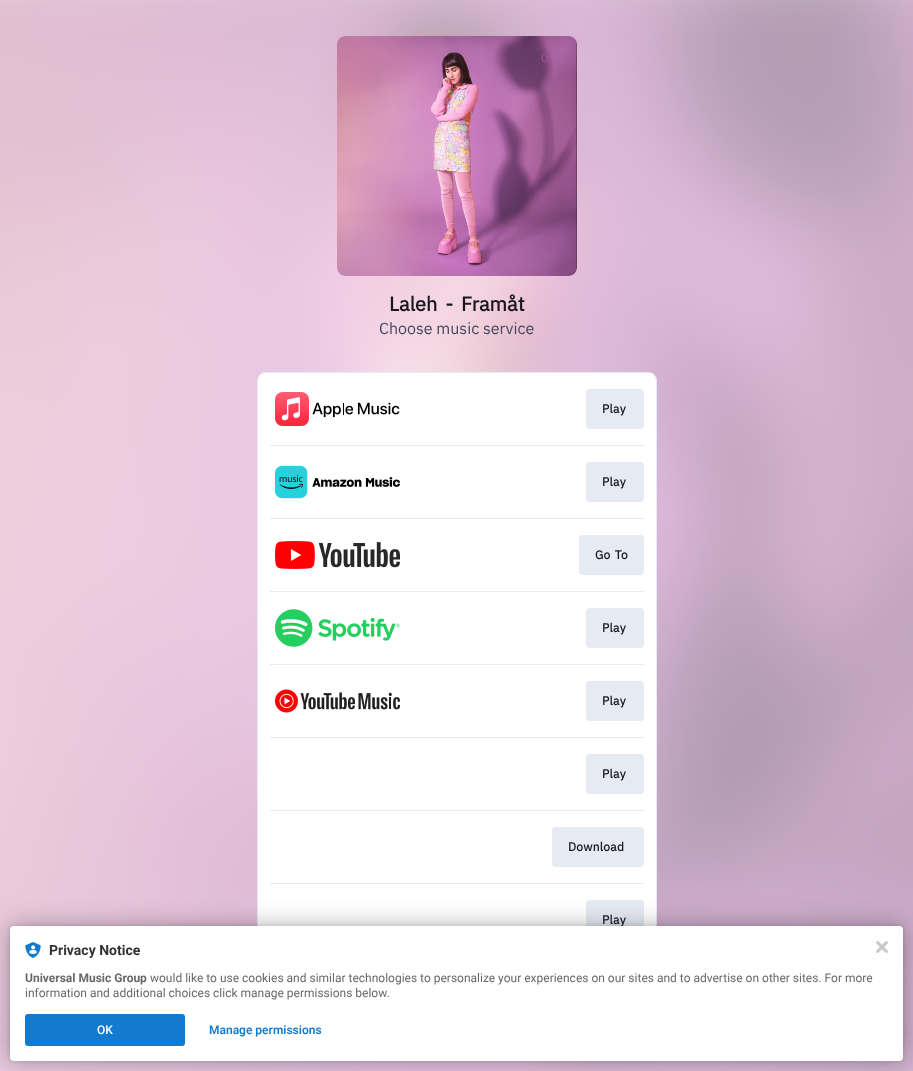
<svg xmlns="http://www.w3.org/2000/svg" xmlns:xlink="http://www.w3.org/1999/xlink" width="913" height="1071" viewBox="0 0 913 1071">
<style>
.cls-1{font:12px IBM Plex Sans;fill:#995993}
.cls-2{font:bold 20px IBM Plex Sans;fill:#181721}
.cls-3{font:16px IBM Plex Sans;fill:#454b5f}
.cls-4{font:bold 12px IBM Plex Sans;letter-spacing:0.25px;fill:#181721}
.cls-5{font:bold 14px Roboto;fill:#323232}
.cls-6{font:bold 12px Roboto;fill:#686868}
.cls-7{font:12px Roboto;fill:#686868}
.cls-8{font:500 12px Roboto;fill:#ffffff}
.cls-9{font:600 12px Roboto;fill:#137bcf}
</style>
<rect width="100%" height="100%" fill="#ffffff"/>
<image xlink:href="image0.png" x="0" y="0" width="913" height="1071"/>
<image xlink:href="image1.png" x="337" y="36" width="240" height="240"/>
<rect fill="none" stroke="#e6eaf2" x="257.5" y="372.5" width="399" height="584" rx="7.5"/>
<rect fill="#ffffff" x="258" y="373" width="398" height="583" rx="7"/>
<image xlink:href="image2.png" x="275" y="392" width="125" height="34"/>
<rect fill="#e6eaf2" x="586" y="389" width="58" height="40" rx="4"/>
<rect fill="#e6eaf2" x="270" y="445" width="374" height="1"/>
<image xlink:href="image3.png" x="275" y="465" width="125" height="34"/>
<rect fill="#e6eaf2" x="586" y="462" width="58" height="40" rx="4"/>
<rect fill="#e6eaf2" x="270" y="518" width="374" height="1"/>
<image xlink:href="image4.png" x="275" y="541" width="125" height="28"/>
<rect fill="#e6eaf2" x="579" y="535" width="65" height="40" rx="4"/>
<rect fill="#e6eaf2" x="270" y="591" width="374" height="1"/>
<image xlink:href="image5.png" x="275" y="609" width="125" height="38"/>
<rect fill="#e6eaf2" x="586" y="608" width="58" height="40" rx="4"/>
<rect fill="#e6eaf2" x="270" y="664" width="374" height="1"/>
<image xlink:href="image6.png" x="275" y="689" width="125" height="24"/>
<rect fill="#e6eaf2" x="586" y="681" width="58" height="40" rx="4"/>
<rect fill="#e6eaf2" x="270" y="737" width="374" height="1"/>
<rect fill="#e6eaf2" x="586" y="754" width="58" height="40" rx="4"/>
<rect fill="#e6eaf2" x="270" y="810" width="374" height="1"/>
<rect fill="#e6eaf2" x="552" y="827" width="92" height="40" rx="4"/>
<rect fill="#e6eaf2" x="270" y="883" width="374" height="1"/>
<rect fill="#e6eaf2" x="586" y="900" width="58" height="40" rx="4"/>
<rect fill="#000000" fill-opacity="0.12" filter="blur(2px)" x="10" y="926" width="893" height="135" rx="4"/>
<rect fill="#000000" fill-opacity="0.3" filter="blur(12px)" x="10" y="926" width="893" height="135" rx="4"/>
<text class="cls-1" x="541" y="62">0</text>
<text class="cls-2" x="389" y="311" word-spacing="3">Laleh - Framåt</text>
<text class="cls-3" x="379" y="334">Choose music service</text>
<text class="cls-4" x="602" y="413">Play</text>
<text class="cls-4" x="602" y="486">Play</text>
<text class="cls-4" x="595" y="559" word-spacing="1">Go To</text>
<text class="cls-4" x="602" y="632">Play</text>
<text class="cls-4" x="602" y="705">Play</text>
<text class="cls-4" x="602" y="778">Play</text>
<text class="cls-4" x="568" y="851">Download</text>
<text class="cls-4" x="602" y="924">Play</text>
<rect fill="#ffffff" x="10" y="926" width="893" height="135" rx="4"/>
<image xlink:href="image7.png" x="25" y="942" width="16" height="16"/>
<text class="cls-5" x="49" y="955">Privacy Notice</text>
<text class="cls-6" x="25" y="982">Universal Music Group</text>
<text class="cls-7" x="150" y="982">would like to use cookies and similar technologies to personalize your experiences on our sites and to advertise on other sites. For more</text>
<text class="cls-7" x="25" y="997">information and additional choices click manage permissions below.</text>
<rect fill="#137bcf" x="25" y="1014" width="160" height="32" rx="3"/>
<text class="cls-8" x="97" y="1034">OK</text>
<text class="cls-9" x="209" y="1034">Manage permissions</text>
<image xlink:href="image8.png" x="876" y="941" width="12" height="12"/>
</svg>
